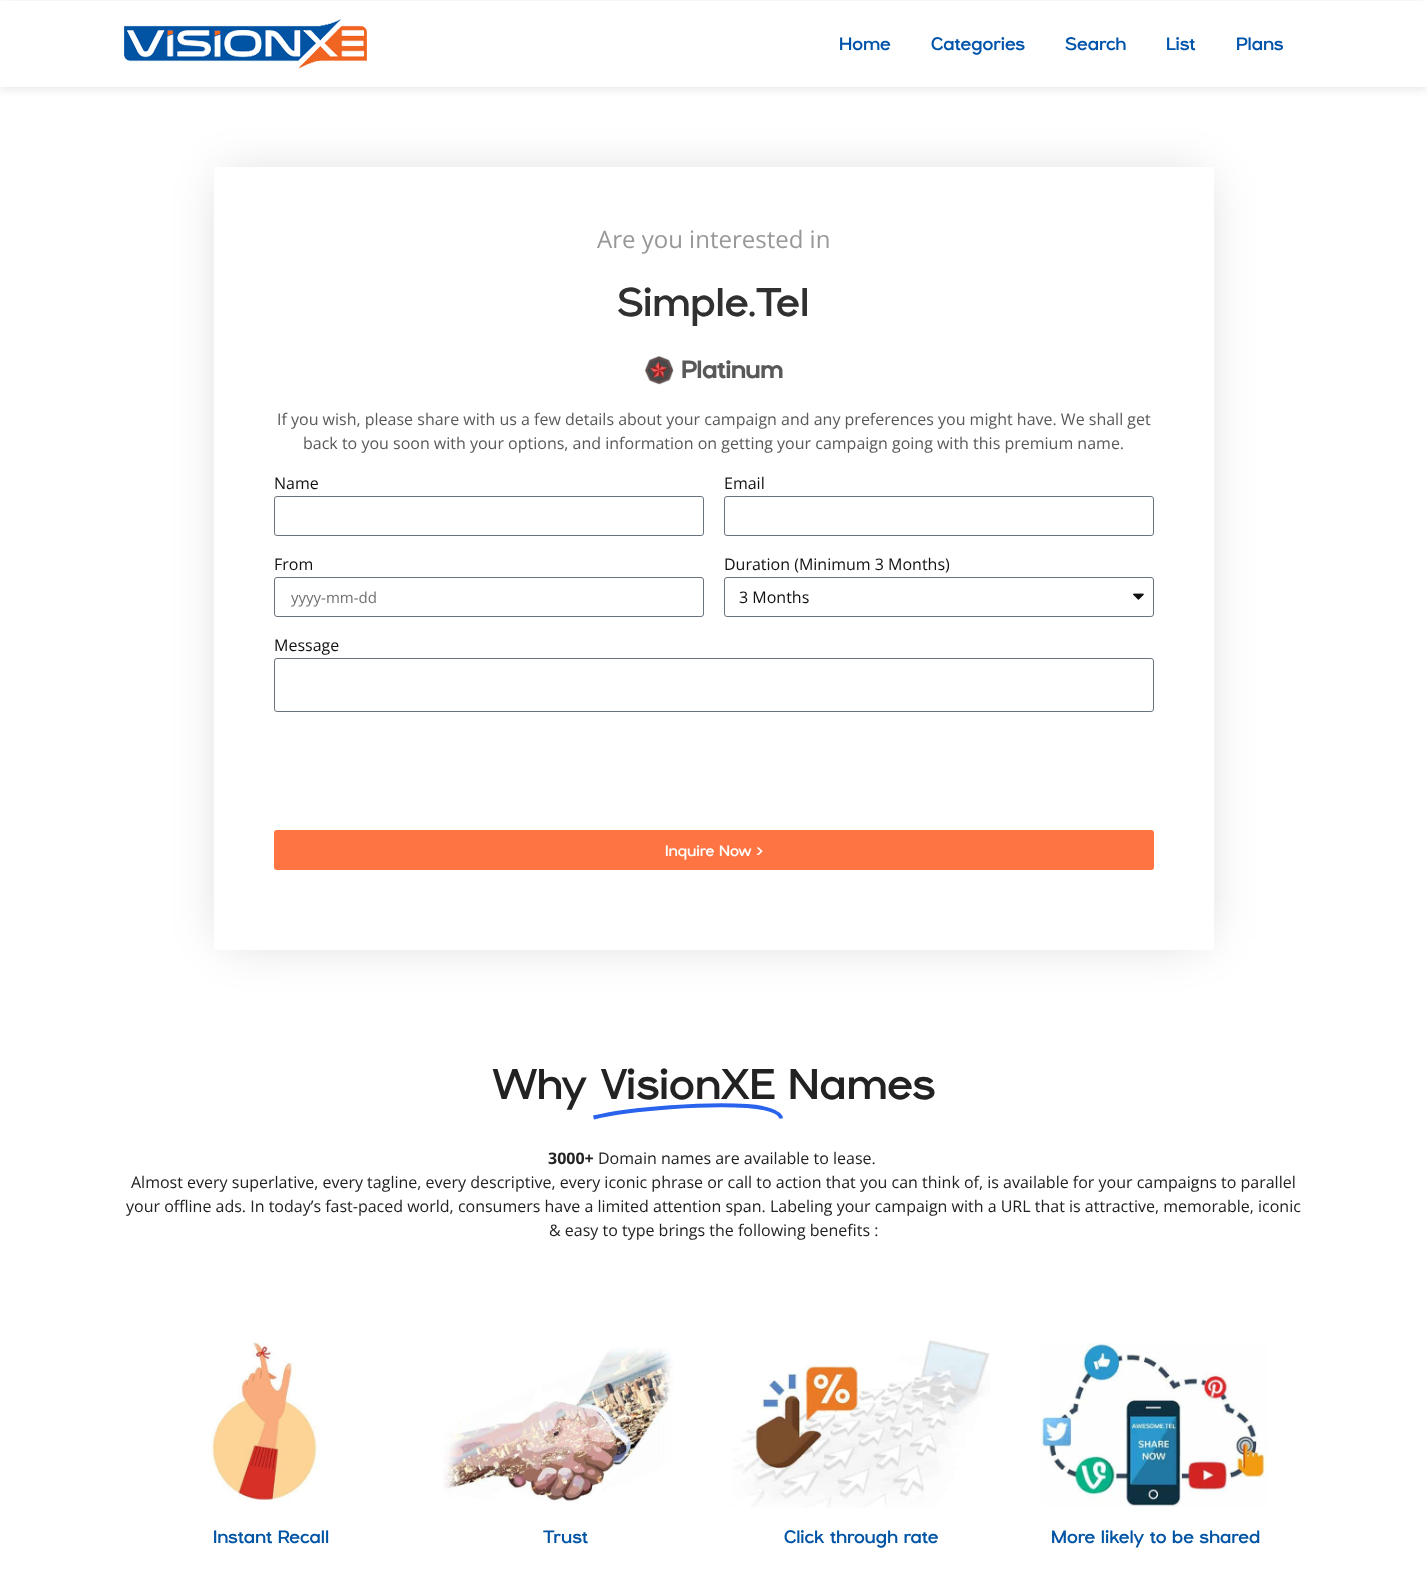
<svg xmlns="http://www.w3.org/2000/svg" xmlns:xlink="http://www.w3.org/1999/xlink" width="1427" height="1576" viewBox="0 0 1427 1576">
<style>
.cls-1{font:18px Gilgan;fill:#0053aa}
.cls-2{font:24px Open Sans;fill:#989898}
.cls-3{font:40px Gilgan;fill:#303030}
.cls-4{font:bold 24px Gilgan;fill:#595959}
.cls-5{font:16px Open Sans;fill:#595959}
.cls-6{font:16px Open Sans;fill:#111111}
.cls-7{font:15px Open Sans;fill:#707070}
.cls-8{font:15px Gilgan;fill:#ffffff}
.cls-9{font:43px Gilgan;fill:#222222}
.cls-10{font:bold 16px Open Sans;fill:#222222}
.cls-11{font:16px Open Sans;fill:#222222}
.cls-12{font:18px Gilgan;fill:#0154a4}
</style>
<defs>
<clipPath id="clip1"><path d="M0 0H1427V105H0ZM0 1H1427V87H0Z" clip-rule="evenodd"/></clipPath>
<clipPath id="clip2"><path d="M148 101H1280V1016H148ZM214 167H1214V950H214Z" clip-rule="evenodd"/></clipPath>
<clipPath id="clip3"><rect x="291" y="587" width="396" height="20"/></clipPath>
</defs>
<rect width="100%" height="100%" fill="#ffffff"/>
<g clip-path="url(#clip1)">
<rect fill="#000000" fill-opacity="0.1" filter="blur(5px)" x="0" y="3" width="1427" height="86"/>
</g>
<image xlink:href="image0.png" x="124" y="19" width="243" height="50"/>
<g clip-path="url(#clip2)">
<rect fill="#000000" fill-opacity="0.17" filter="blur(25px)" x="224" y="177" width="980" height="763"/>
</g>
<image xlink:href="image1.png" x="644" y="356" width="30" height="29"/>
<rect fill="none" stroke="#69727d" x="274.5" y="496.5" width="429" height="39" rx="2.5"/>
<rect fill="none" stroke="#69727d" x="724.5" y="496.5" width="429" height="39" rx="2.5"/>
<rect fill="none" stroke="#69727d" x="274.5" y="577.5" width="429" height="39" rx="2.5"/>
<rect fill="none" stroke="#69727d" x="724.5" y="577.5" width="429" height="39" rx="2.5"/>
<image xlink:href="image2.png" x="1133" y="593" width="11" height="7"/>
<rect fill="none" stroke="#69727d" x="274.5" y="658.5" width="879" height="53" rx="2.5"/>
<rect fill="#ff7443" x="274" y="830" width="880" height="40" rx="3"/>
<path fill="none" stroke="#2962ec" stroke-width="3.9" d="M593.5 1117.5C633 1108 707.5 1103.5 747 1106C763.5 1107 781 1111.5 781 1118.5"/>
<image xlink:href="image3.png" x="209" y="1342" width="139" height="166"/>
<image xlink:href="image4.png" x="443" y="1347" width="231" height="156"/>
<image xlink:href="image5.png" x="732" y="1340" width="258" height="168"/>
<image xlink:href="image6.png" x="1041" y="1343" width="227" height="164"/>
<text class="cls-1" x="839" y="50">Home</text>
<text class="cls-1" x="931" y="50">Categories</text>
<text class="cls-1" x="1065" y="50">Search</text>
<text class="cls-1" x="1166" y="50">List</text>
<text class="cls-1" x="1236" y="50">Plans</text>
<text class="cls-2" x="597" y="248">Are you interested in</text>
<text class="cls-3" x="617" y="316">Simple.Tel</text>
<text class="cls-4" x="681" y="378">Platinum</text>
<text class="cls-5" x="277" y="425">If you wish, please share with us a few details about your campaign and any preferences you might have. We shall get</text>
<text class="cls-5" x="303" y="449">back to you soon with your options, and information on getting your campaign going with this premium name.</text>
<text class="cls-6" x="274" y="489">Name</text>
<text class="cls-6" x="724" y="489">Email</text>
<text class="cls-6" x="274" y="570">From</text>
<g clip-path="url(#clip3)">
<text class="cls-7" x="291" y="603">yyyy-mm-dd</text>
</g>
<text class="cls-6" x="724" y="570">Duration (Minimum 3 Months)</text>
<text class="cls-6" x="739" y="603">3 Months</text>
<text class="cls-6" x="274" y="651">Message</text>
<text class="cls-8" x="665" y="856">Inquire Now &gt;</text>
<text class="cls-9" x="492" y="1099">Why VisionXE Names</text>
<text class="cls-10" x="548" y="1164">3000+</text>
<text class="cls-11" x="598" y="1164">Domain names are available to lease.</text>
<text class="cls-11" x="131" y="1188">Almost every superlative, every tagline, every descriptive, every iconic phrase or call to action that you can think of, is available for your campaigns to parallel</text>
<text class="cls-11" x="126" y="1212">your offline ads. In today’s fast-paced world, consumers have a limited attention span. Labeling your campaign with a URL that is attractive, memorable, iconic</text>
<text class="cls-11" x="549" y="1236">&amp; easy to type brings the following benefits :</text>
<text class="cls-12" x="213" y="1543">Instant Recall</text>
<text class="cls-12" x="543" y="1543">Trust</text>
<text class="cls-12" x="784" y="1543">Click through rate</text>
<text class="cls-12" x="1051" y="1543">More likely to be shared</text>
</svg>
